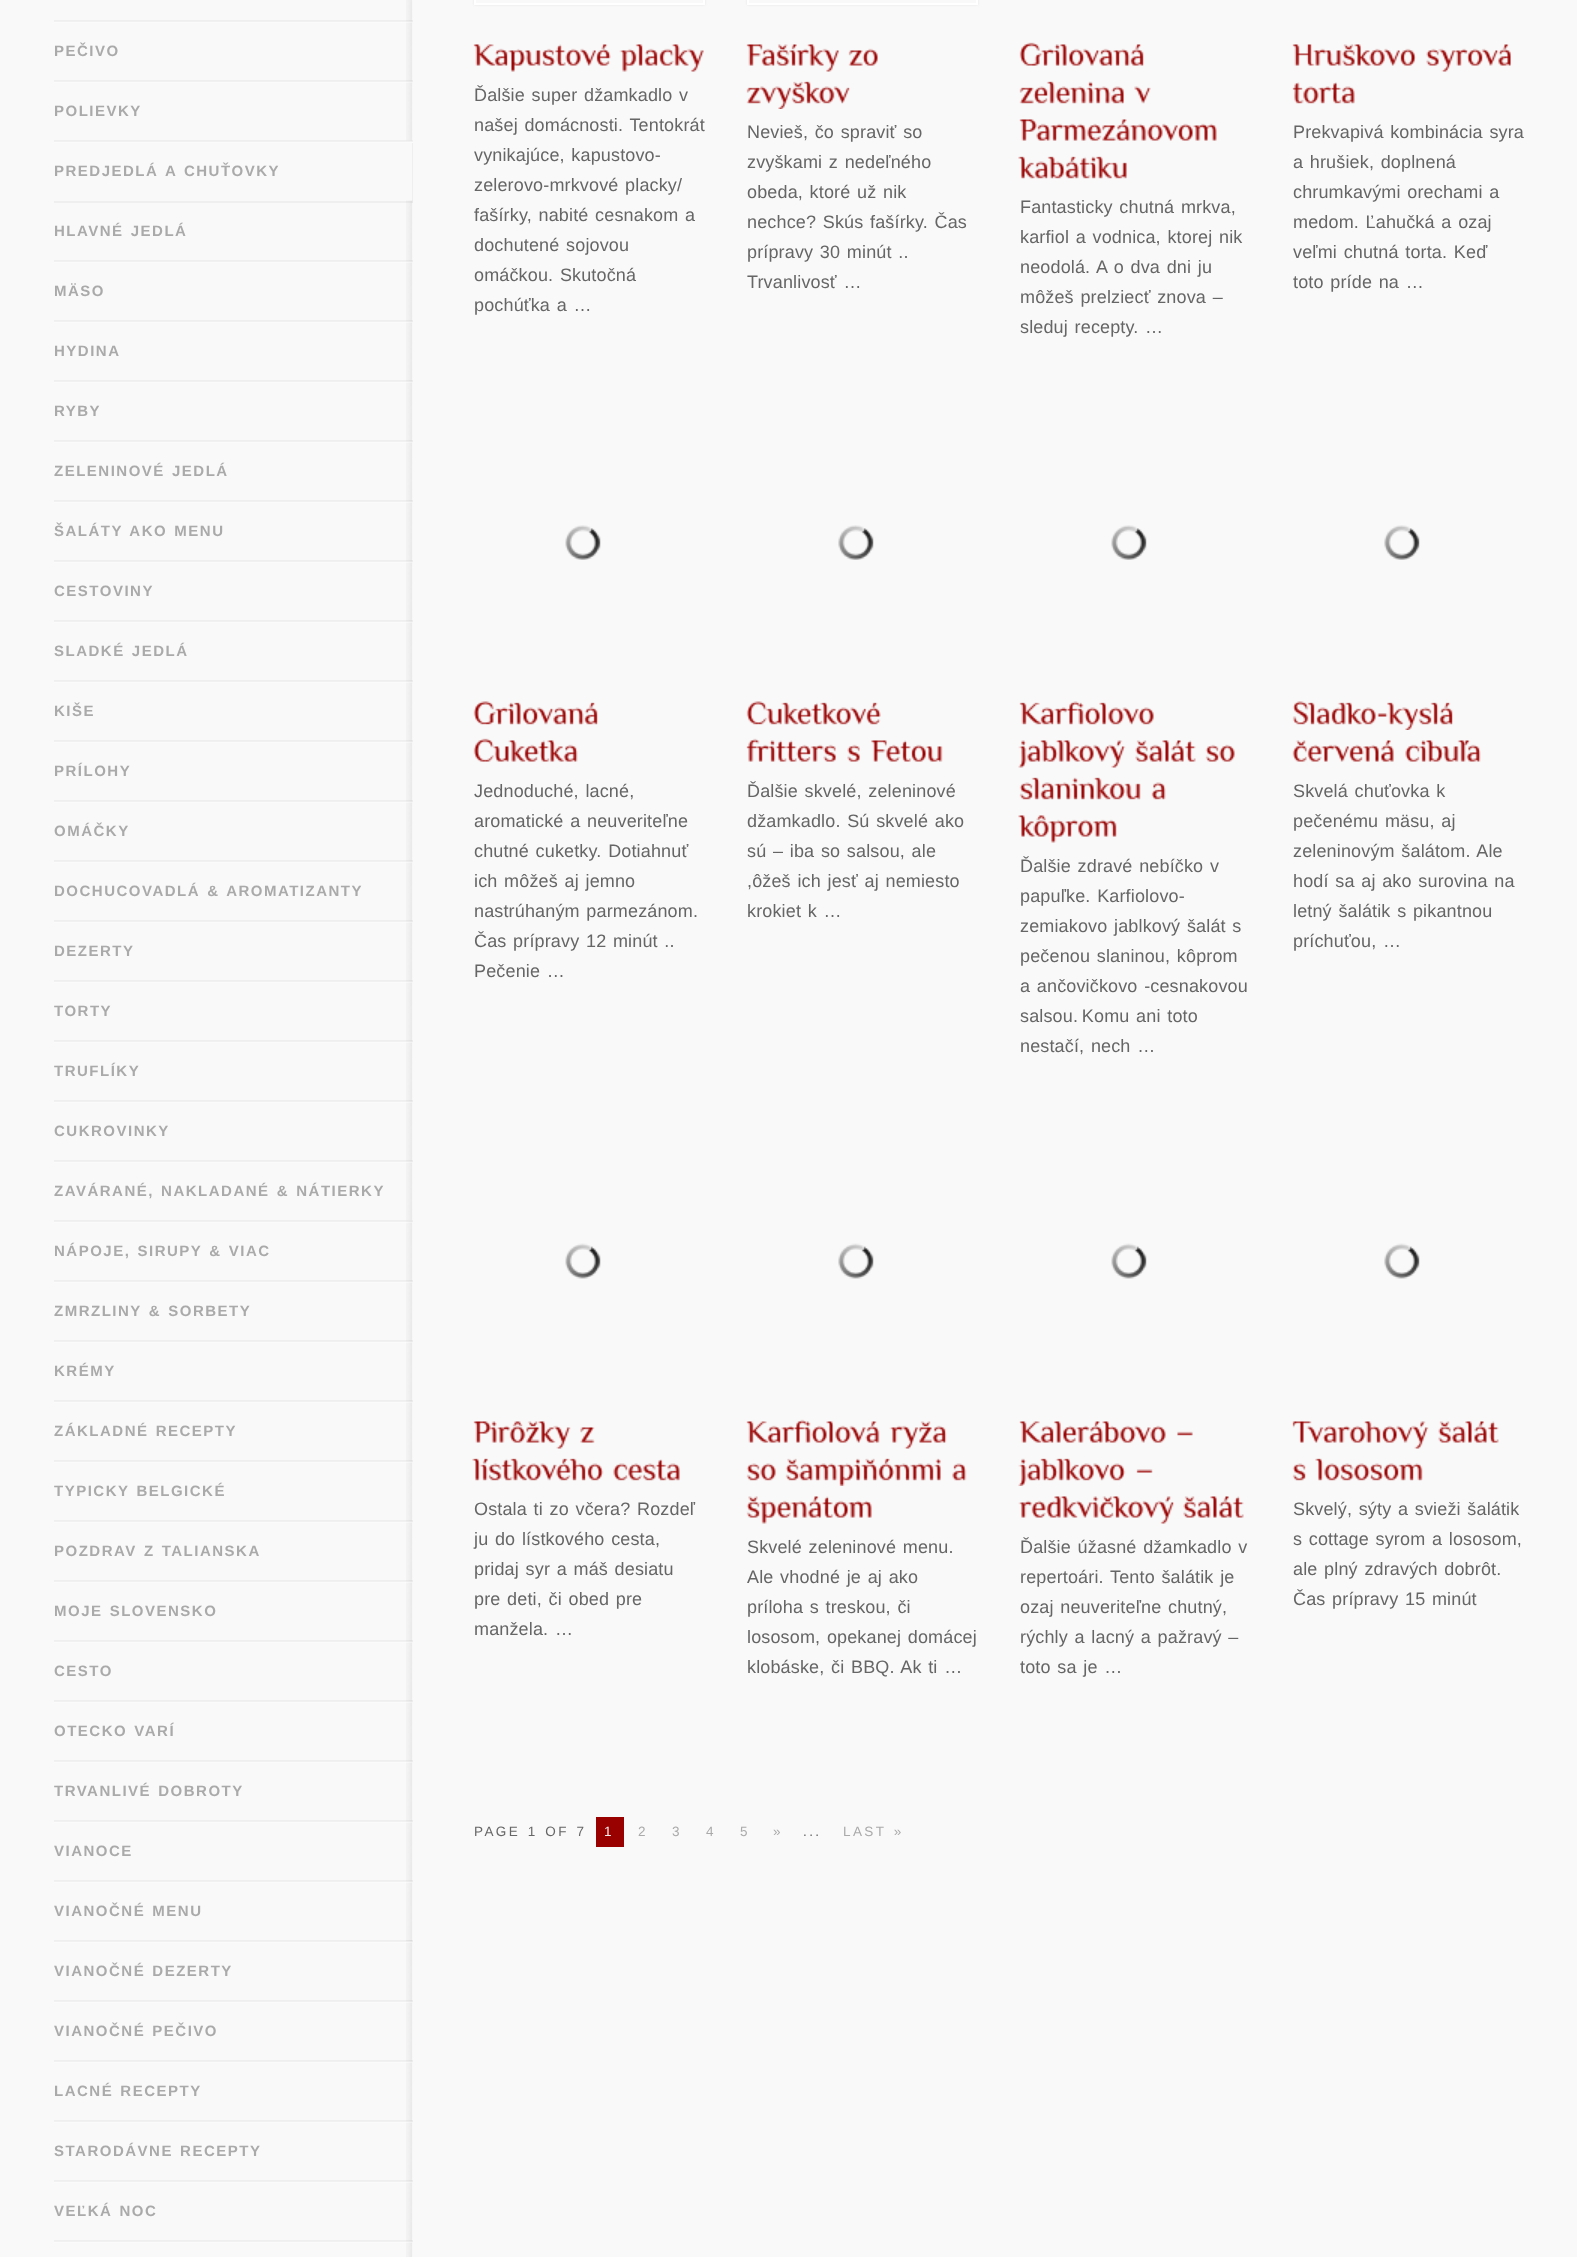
<svg xmlns="http://www.w3.org/2000/svg" xmlns:xlink="http://www.w3.org/1999/xlink" width="1577" height="2257" viewBox="0 0 1577 2257">
<style>
.cls-1{font:bold 15px Liberation Sans;letter-spacing:1.5px;fill:#aaaaaa}
.cls-2{font:18px Liberation Sans;letter-spacing:0.15px;fill:#666666}
.cls-3{font:13.5px Liberation Sans;letter-spacing:2.4px;fill:#666666}
.cls-4{font:13.5px Liberation Sans;letter-spacing:2.4px;fill:#eeeeee}
.cls-5{font:13.5px Liberation Sans;letter-spacing:2.4px;fill:#aaaaaa}
</style>
<rect width="100%" height="100%" fill="#f9f9f9"/>
<image xlink:href="image0.png" x="406" y="0" width="7" height="21"/>
<image xlink:href="image1.png" x="406" y="20" width="7" height="61"/>
<path fill="#ffffff" fill-opacity="0.4" d="M54 21V23H413V-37H412V21Z"/>
<rect fill="#000000" fill-opacity="0.04" x="54" y="20" width="359" height="2"/>
<image xlink:href="image2.png" x="406" y="80" width="7" height="61"/>
<path fill="#ffffff" fill-opacity="0.4" d="M54 81V83H413V23H412V81Z"/>
<rect fill="#000000" fill-opacity="0.04" x="54" y="80" width="359" height="2"/>
<path fill="#ffffff" fill-opacity="0.4" d="M54 141V143H413V83H412V141Z"/>
<rect fill="#000000" fill-opacity="0.04" x="54" y="140" width="359" height="2"/>
<image xlink:href="image3.png" x="406" y="200" width="7" height="61"/>
<path fill="#000000" fill-opacity="0.04" d="M54 201V203H413V143H412V201Z"/>
<image xlink:href="image1.png" x="406" y="260" width="7" height="61"/>
<path fill="#ffffff" fill-opacity="0.4" d="M54 261V263H413V203H412V261Z"/>
<rect fill="#000000" fill-opacity="0.04" x="54" y="260" width="359" height="2"/>
<image xlink:href="image1.png" x="406" y="320" width="7" height="61"/>
<path fill="#ffffff" fill-opacity="0.4" d="M54 321V323H413V263H412V321Z"/>
<rect fill="#000000" fill-opacity="0.04" x="54" y="320" width="359" height="2"/>
<image xlink:href="image4.png" x="406" y="380" width="7" height="61"/>
<path fill="#ffffff" fill-opacity="0.4" d="M54 381V383H413V323H412V381Z"/>
<rect fill="#000000" fill-opacity="0.04" x="54" y="380" width="359" height="2"/>
<image xlink:href="image5.png" x="406" y="440" width="7" height="61"/>
<path fill="#ffffff" fill-opacity="0.4" d="M54 441V443H413V383H412V441Z"/>
<rect fill="#000000" fill-opacity="0.04" x="54" y="440" width="359" height="2"/>
<image xlink:href="image6.png" x="406" y="500" width="7" height="61"/>
<path fill="#ffffff" fill-opacity="0.4" d="M54 501V503H413V443H412V501Z"/>
<rect fill="#000000" fill-opacity="0.04" x="54" y="500" width="359" height="2"/>
<image xlink:href="image7.png" x="406" y="560" width="7" height="61"/>
<path fill="#ffffff" fill-opacity="0.4" d="M54 561V563H413V503H412V561Z"/>
<rect fill="#000000" fill-opacity="0.04" x="54" y="560" width="359" height="2"/>
<image xlink:href="image8.png" x="406" y="620" width="7" height="61"/>
<path fill="#ffffff" fill-opacity="0.4" d="M54 621V623H413V563H412V621Z"/>
<rect fill="#000000" fill-opacity="0.04" x="54" y="620" width="359" height="2"/>
<image xlink:href="image9.png" x="406" y="680" width="7" height="61"/>
<path fill="#ffffff" fill-opacity="0.4" d="M54 681V683H413V623H412V681Z"/>
<rect fill="#000000" fill-opacity="0.04" x="54" y="680" width="359" height="2"/>
<image xlink:href="image10.png" x="406" y="740" width="7" height="61"/>
<path fill="#ffffff" fill-opacity="0.4" d="M54 741V743H413V683H412V741Z"/>
<rect fill="#000000" fill-opacity="0.04" x="54" y="740" width="359" height="2"/>
<image xlink:href="image11.png" x="406" y="800" width="7" height="61"/>
<path fill="#ffffff" fill-opacity="0.4" d="M54 801V803H413V743H412V801Z"/>
<rect fill="#000000" fill-opacity="0.04" x="54" y="800" width="359" height="2"/>
<image xlink:href="image10.png" x="406" y="860" width="7" height="61"/>
<path fill="#ffffff" fill-opacity="0.4" d="M54 861V863H413V803H412V861Z"/>
<rect fill="#000000" fill-opacity="0.04" x="54" y="860" width="359" height="2"/>
<image xlink:href="image1.png" x="406" y="920" width="7" height="61"/>
<path fill="#ffffff" fill-opacity="0.4" d="M54 921V923H413V863H412V921Z"/>
<rect fill="#000000" fill-opacity="0.04" x="54" y="920" width="359" height="2"/>
<image xlink:href="image12.png" x="406" y="980" width="7" height="61"/>
<path fill="#ffffff" fill-opacity="0.4" d="M54 981V983H413V923H412V981Z"/>
<rect fill="#000000" fill-opacity="0.04" x="54" y="980" width="359" height="2"/>
<image xlink:href="image12.png" x="406" y="1040" width="7" height="61"/>
<path fill="#ffffff" fill-opacity="0.4" d="M54 1041V1043H413V983H412V1041Z"/>
<rect fill="#000000" fill-opacity="0.04" x="54" y="1040" width="359" height="2"/>
<image xlink:href="image13.png" x="406" y="1100" width="7" height="61"/>
<path fill="#ffffff" fill-opacity="0.4" d="M54 1101V1103H413V1043H412V1101Z"/>
<rect fill="#000000" fill-opacity="0.04" x="54" y="1100" width="359" height="2"/>
<image xlink:href="image8.png" x="406" y="1160" width="7" height="61"/>
<path fill="#ffffff" fill-opacity="0.4" d="M54 1161V1163H413V1103H412V1161Z"/>
<rect fill="#000000" fill-opacity="0.04" x="54" y="1160" width="359" height="2"/>
<image xlink:href="image14.png" x="406" y="1221" width="7" height="60"/>
<path fill="#ffffff" fill-opacity="0.4" d="M54 1221V1223H413V1163H412V1221Z"/>
<rect fill="#000000" fill-opacity="0.04" x="54" y="1220" width="359" height="2"/>
<image xlink:href="image15.png" x="406" y="1280" width="7" height="61"/>
<path fill="#ffffff" fill-opacity="0.4" d="M54 1281V1283H413V1223H412V1281Z"/>
<rect fill="#000000" fill-opacity="0.04" x="54" y="1280" width="359" height="2"/>
<image xlink:href="image16.png" x="406" y="1340" width="7" height="61"/>
<path fill="#ffffff" fill-opacity="0.4" d="M54 1341V1343H413V1283H412V1341Z"/>
<rect fill="#000000" fill-opacity="0.04" x="54" y="1340" width="359" height="2"/>
<image xlink:href="image10.png" x="406" y="1400" width="7" height="61"/>
<path fill="#ffffff" fill-opacity="0.4" d="M54 1401V1403H413V1343H412V1401Z"/>
<rect fill="#000000" fill-opacity="0.04" x="54" y="1400" width="359" height="2"/>
<image xlink:href="image4.png" x="406" y="1460" width="7" height="61"/>
<path fill="#ffffff" fill-opacity="0.4" d="M54 1461V1463H413V1403H412V1461Z"/>
<rect fill="#000000" fill-opacity="0.04" x="54" y="1460" width="359" height="2"/>
<image xlink:href="image5.png" x="406" y="1520" width="7" height="61"/>
<path fill="#ffffff" fill-opacity="0.4" d="M54 1521V1523H413V1463H412V1521Z"/>
<rect fill="#000000" fill-opacity="0.04" x="54" y="1520" width="359" height="2"/>
<image xlink:href="image17.png" x="406" y="1580" width="7" height="61"/>
<path fill="#ffffff" fill-opacity="0.4" d="M54 1581V1583H413V1523H412V1581Z"/>
<rect fill="#000000" fill-opacity="0.04" x="54" y="1580" width="359" height="2"/>
<image xlink:href="image10.png" x="406" y="1640" width="7" height="61"/>
<path fill="#ffffff" fill-opacity="0.4" d="M54 1641V1643H413V1583H412V1641Z"/>
<rect fill="#000000" fill-opacity="0.04" x="54" y="1640" width="359" height="2"/>
<image xlink:href="image8.png" x="406" y="1700" width="7" height="61"/>
<path fill="#ffffff" fill-opacity="0.4" d="M54 1701V1703H413V1643H412V1701Z"/>
<rect fill="#000000" fill-opacity="0.04" x="54" y="1700" width="359" height="2"/>
<image xlink:href="image18.png" x="406" y="1760" width="7" height="61"/>
<path fill="#ffffff" fill-opacity="0.4" d="M54 1761V1763H413V1703H412V1761Z"/>
<rect fill="#000000" fill-opacity="0.04" x="54" y="1760" width="359" height="2"/>
<image xlink:href="image12.png" x="406" y="1820" width="7" height="61"/>
<path fill="#ffffff" fill-opacity="0.4" d="M54 1821V1823H413V1763H412V1821Z"/>
<rect fill="#000000" fill-opacity="0.04" x="54" y="1820" width="359" height="2"/>
<image xlink:href="image19.png" x="406" y="1880" width="7" height="61"/>
<path fill="#ffffff" fill-opacity="0.4" d="M54 1881V1883H413V1823H412V1881Z"/>
<rect fill="#000000" fill-opacity="0.04" x="54" y="1880" width="359" height="2"/>
<image xlink:href="image20.png" x="406" y="1940" width="7" height="61"/>
<path fill="#ffffff" fill-opacity="0.4" d="M54 1941V1943H413V1883H412V1941Z"/>
<rect fill="#000000" fill-opacity="0.04" x="54" y="1940" width="359" height="2"/>
<image xlink:href="image21.png" x="406" y="2000" width="7" height="61"/>
<path fill="#ffffff" fill-opacity="0.4" d="M54 2001V2003H413V1943H412V2001Z"/>
<rect fill="#000000" fill-opacity="0.04" x="54" y="2000" width="359" height="2"/>
<image xlink:href="image22.png" x="406" y="2060" width="7" height="61"/>
<path fill="#ffffff" fill-opacity="0.4" d="M54 2061V2063H413V2003H412V2061Z"/>
<rect fill="#000000" fill-opacity="0.04" x="54" y="2060" width="359" height="2"/>
<image xlink:href="image8.png" x="406" y="2120" width="7" height="61"/>
<path fill="#ffffff" fill-opacity="0.4" d="M54 2121V2123H413V2063H412V2121Z"/>
<rect fill="#000000" fill-opacity="0.04" x="54" y="2120" width="359" height="2"/>
<image xlink:href="image23.png" x="406" y="2180" width="7" height="61"/>
<path fill="#ffffff" fill-opacity="0.4" d="M54 2181V2183H413V2123H412V2181Z"/>
<rect fill="#000000" fill-opacity="0.04" x="54" y="2180" width="359" height="2"/>
<image xlink:href="image24.png" x="406" y="2240" width="7" height="17"/>
<path fill="#ffffff" fill-opacity="0.4" d="M54 2241V2243H413V2183H412V2241Z"/>
<rect fill="#000000" fill-opacity="0.04" x="54" y="2240" width="359" height="2"/>
<path fill="#f7f7f7" d="M54 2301V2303H413V2243H412V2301Z"/>
<rect fill="#000000" fill-opacity="0.08" filter="blur(1px)" x="474" y="-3" width="231" height="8"/>
<rect fill="#f9f9f9" stroke="#ffffff" stroke-width="2" x="475" y="-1" width="229" height="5"/>
<image xlink:href="image25.png" x="473" y="44" width="138" height="28"/>
<image xlink:href="image26.png" x="619" y="44" width="85" height="28"/>
<rect fill="#000000" fill-opacity="0.08" filter="blur(1px)" x="747" y="-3" width="231" height="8"/>
<rect fill="#f9f9f9" stroke="#ffffff" stroke-width="2" x="748" y="-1" width="229" height="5"/>
<image xlink:href="image27.png" x="746" y="44" width="93" height="28"/>
<image xlink:href="image28.png" x="848" y="48" width="30" height="18"/>
<image xlink:href="image29.png" x="746" y="81" width="104" height="28"/>
<image xlink:href="image30.png" x="1019" y="42" width="125" height="24"/>
<image xlink:href="image31.png" x="1019" y="81" width="105" height="23"/>
<image xlink:href="image32.png" x="1134" y="86" width="17" height="18"/>
<image xlink:href="image33.png" x="1019" y="119" width="198" height="22"/>
<image xlink:href="image34.png" x="1018" y="156" width="109" height="23"/>
<image xlink:href="image35.png" x="1292" y="44" width="124" height="22"/>
<image xlink:href="image36.png" x="1426" y="44" width="85" height="28"/>
<image xlink:href="image37.png" x="1292" y="82" width="63" height="22"/>
<image xlink:href="image38.png" x="565" y="525" width="36" height="35"/>
<image xlink:href="image39.png" x="473" y="701" width="125" height="24"/>
<image xlink:href="image40.png" x="473" y="738" width="105" height="24"/>
<image xlink:href="image41.png" x="838" y="525" width="36" height="35"/>
<image xlink:href="image42.png" x="746" y="701" width="135" height="24"/>
<image xlink:href="image43.png" x="746" y="738" width="90" height="24"/>
<image xlink:href="image44.png" x="847" y="744" width="13" height="18"/>
<image xlink:href="image45.png" x="871" y="740" width="72" height="22"/>
<image xlink:href="image38.png" x="1111" y="525" width="36" height="35"/>
<image xlink:href="image46.png" x="1019" y="701" width="135" height="24"/>
<image xlink:href="image47.png" x="1018" y="740" width="108" height="28"/>
<image xlink:href="image48.png" x="1135" y="740" width="61" height="22"/>
<image xlink:href="image49.png" x="1205" y="744" width="30" height="18"/>
<image xlink:href="image50.png" x="1019" y="777" width="122" height="23"/>
<image xlink:href="image51.png" x="1151" y="782" width="15" height="18"/>
<image xlink:href="image52.png" x="1018" y="815" width="99" height="28"/>
<image xlink:href="image41.png" x="1384" y="525" width="36" height="35"/>
<image xlink:href="image53.png" x="1292" y="701" width="161" height="29"/>
<image xlink:href="image54.png" x="1292" y="740" width="102" height="22"/>
<image xlink:href="image55.png" x="1405" y="740" width="76" height="22"/>
<image xlink:href="image56.png" x="565" y="1243" width="36" height="36"/>
<image xlink:href="image57.png" x="473" y="1421" width="98" height="28"/>
<image xlink:href="image58.png" x="580" y="1427" width="15" height="16"/>
<image xlink:href="image59.png" x="472" y="1458" width="132" height="23"/>
<image xlink:href="image60.png" x="613" y="1459" width="67" height="22"/>
<image xlink:href="image61.png" x="838" y="1243" width="36" height="36"/>
<image xlink:href="image62.png" x="746" y="1419" width="134" height="24"/>
<image xlink:href="image63.png" x="889" y="1421" width="58" height="28"/>
<image xlink:href="image64.png" x="746" y="1463" width="30" height="18"/>
<image xlink:href="image65.png" x="785" y="1458" width="156" height="28"/>
<image xlink:href="image66.png" x="952" y="1463" width="15" height="18"/>
<image xlink:href="image67.png" x="746" y="1496" width="126" height="28"/>
<image xlink:href="image56.png" x="1111" y="1243" width="36" height="36"/>
<image xlink:href="image68.png" x="1019" y="1421" width="147" height="22"/>
<image xlink:href="image69.png" x="1177" y="1431" width="16" height="5"/>
<image xlink:href="image70.png" x="1018" y="1458" width="108" height="28"/>
<image xlink:href="image71.png" x="1136" y="1469" width="17" height="4"/>
<image xlink:href="image72.png" x="1018" y="1496" width="156" height="28"/>
<image xlink:href="image48.png" x="1183" y="1496" width="61" height="22"/>
<image xlink:href="image61.png" x="1384" y="1243" width="36" height="36"/>
<image xlink:href="image73.png" x="1292" y="1421" width="137" height="28"/>
<image xlink:href="image48.png" x="1438" y="1421" width="61" height="22"/>
<image xlink:href="image74.png" x="1292" y="1463" width="14" height="18"/>
<image xlink:href="image75.png" x="1315" y="1458" width="108" height="23"/>
<rect fill="#990000" x="596" y="1817" width="28" height="30"/>
<text class="cls-1" x="54" y="56">PEČIVO</text>
<text class="cls-1" x="54" y="116">POLIEVKY</text>
<text class="cls-1" x="54" y="176" word-spacing="1.5">PREDJEDLÁ A CHUŤOVKY</text>
<text class="cls-1" x="54" y="236" word-spacing="1.5">HLAVNÉ JEDLÁ</text>
<text class="cls-1" x="54" y="296">MÄSO</text>
<text class="cls-1" x="54" y="356">HYDINA</text>
<text class="cls-1" x="54" y="416">RYBY</text>
<text class="cls-1" x="54" y="476" word-spacing="1.5">ZELENINOVÉ JEDLÁ</text>
<text class="cls-1" x="54" y="536" word-spacing="1.5">ŠALÁTY AKO MENU</text>
<text class="cls-1" x="54" y="596">CESTOVINY</text>
<text class="cls-1" x="54" y="656" word-spacing="1.5">SLADKÉ JEDLÁ</text>
<text class="cls-1" x="54" y="716">KIŠE</text>
<text class="cls-1" x="54" y="776">PRÍLOHY</text>
<text class="cls-1" x="54" y="836">OMÁČKY</text>
<text class="cls-1" x="54" y="896" word-spacing="1.5">DOCHUCOVADLÁ &amp; AROMATIZANTY</text>
<text class="cls-1" x="54" y="956">DEZERTY</text>
<text class="cls-1" x="54" y="1016">TORTY</text>
<text class="cls-1" x="54" y="1076">TRUFLÍKY</text>
<text class="cls-1" x="54" y="1136">CUKROVINKY</text>
<text class="cls-1" x="54" y="1196" word-spacing="1.5">ZAVÁRANÉ, NAKLADANÉ &amp; NÁTIERKY</text>
<text class="cls-1" x="54" y="1256" word-spacing="1.5">NÁPOJE, SIRUPY &amp; VIAC</text>
<text class="cls-1" x="54" y="1316" word-spacing="1.5">ZMRZLINY &amp; SORBETY</text>
<text class="cls-1" x="54" y="1376">KRÉMY</text>
<text class="cls-1" x="54" y="1436" word-spacing="1.5">ZÁKLADNÉ RECEPTY</text>
<text class="cls-1" x="54" y="1496" word-spacing="1.5">TYPICKY BELGICKÉ</text>
<text class="cls-1" x="54" y="1556" word-spacing="1.5">POZDRAV Z TALIANSKA</text>
<text class="cls-1" x="54" y="1616" word-spacing="1.5">MOJE SLOVENSKO</text>
<text class="cls-1" x="54" y="1676">CESTO</text>
<text class="cls-1" x="54" y="1736" word-spacing="1.5">OTECKO VARÍ</text>
<text class="cls-1" x="54" y="1796" word-spacing="1.5">TRVANLIVÉ DOBROTY</text>
<text class="cls-1" x="54" y="1856">VIANOCE</text>
<text class="cls-1" x="54" y="1916" word-spacing="1.5">VIANOČNÉ MENU</text>
<text class="cls-1" x="54" y="1976" word-spacing="1.5">VIANOČNÉ DEZERTY</text>
<text class="cls-1" x="54" y="2036" word-spacing="1.5">VIANOČNÉ PEČIVO</text>
<text class="cls-1" x="54" y="2096" word-spacing="1.5">LACNÉ RECEPTY</text>
<text class="cls-1" x="54" y="2156" word-spacing="1.5">STARODÁVNE RECEPTY</text>
<text class="cls-1" x="54" y="2216" word-spacing="1.5">VEĽKÁ NOC</text>
<text class="cls-2"><tspan x="474" y="101" word-spacing="1.5">Ďalšie super džamkadlo v</tspan><tspan x="474" y="131" word-spacing="1.5">našej domácnosti. Tentokrát</tspan><tspan x="474" y="161" word-spacing="1.5">vynikajúce, kapustovo-</tspan><tspan x="474" y="191" word-spacing="1.5">zelerovo-mrkvové placky/</tspan><tspan x="474" y="221" word-spacing="1.5">fašírky, nabité cesnakom a</tspan><tspan x="474" y="251" word-spacing="1.5">dochutené sojovou</tspan><tspan x="474" y="281" word-spacing="1.5">omáčkou. Skutočná</tspan><tspan x="474" y="311" word-spacing="1.5">pochúťka a …</tspan></text>
<text class="cls-2"><tspan x="747" y="138" word-spacing="1.5">Nevieš, čo spraviť so</tspan><tspan x="747" y="168" word-spacing="1.5">zvyškami z nedeľného</tspan><tspan x="747" y="198" word-spacing="1.5">obeda, ktoré už nik</tspan><tspan x="747" y="228" word-spacing="1.5">nechce? Skús fašírky. Čas</tspan><tspan x="747" y="258" word-spacing="1.5">prípravy 30 minút ..</tspan><tspan x="747" y="288" word-spacing="1.5">Trvanlivosť …</tspan></text>
<text class="cls-2"><tspan x="1020" y="213" word-spacing="1.5">Fantasticky chutná mrkva,</tspan><tspan x="1020" y="243" word-spacing="1.5">karfiol a vodnica, ktorej nik</tspan><tspan x="1020" y="273" word-spacing="1.5">neodolá. A o dva dni ju</tspan><tspan x="1020" y="303" word-spacing="1.5">môžeš prelziecť znova –</tspan><tspan x="1020" y="333" word-spacing="1.5">sleduj recepty. …</tspan></text>
<text class="cls-2"><tspan x="1293" y="138" word-spacing="1.5">Prekvapivá kombinácia syra</tspan><tspan x="1293" y="168" word-spacing="1.5">a hrušiek, doplnená</tspan><tspan x="1293" y="198" word-spacing="1.5">chrumkavými orechami a</tspan><tspan x="1293" y="228" word-spacing="1.5">medom. Ľahučká a ozaj</tspan><tspan x="1293" y="258" word-spacing="1.5">veľmi chutná torta. Keď</tspan><tspan x="1293" y="288" word-spacing="1.5">toto príde na …</tspan></text>
<text class="cls-2"><tspan x="474" y="797" word-spacing="1.5">Jednoduché, lacné,</tspan><tspan x="474" y="827" word-spacing="1.5">aromatické a neuveriteľne</tspan><tspan x="474" y="857" word-spacing="1.5">chutné cuketky. Dotiahnuť</tspan><tspan x="474" y="887" word-spacing="1.5">ich môžeš aj jemno</tspan><tspan x="474" y="917" word-spacing="1.5">nastrúhaným parmezánom.</tspan><tspan x="474" y="947" word-spacing="1.5">Čas prípravy 12 minút ..</tspan><tspan x="474" y="977" word-spacing="1.5">Pečenie …</tspan></text>
<text class="cls-2"><tspan x="747" y="797" word-spacing="1.5">Ďalšie skvelé, zeleninové</tspan><tspan x="747" y="827" word-spacing="1.5">džamkadlo. Sú skvelé ako</tspan><tspan x="747" y="857" word-spacing="1.5">sú – iba so salsou, ale</tspan><tspan x="747" y="887" word-spacing="1.5">,ôžeš ich jesť aj nemiesto</tspan><tspan x="747" y="917" word-spacing="1.5">krokiet k …</tspan></text>
<text class="cls-2"><tspan x="1020" y="872" word-spacing="1.5">Ďalšie zdravé nebíčko v</tspan><tspan x="1020" y="902" word-spacing="1.5">papuľke. Karfiolovo-</tspan><tspan x="1020" y="932" word-spacing="1.5">zemiakovo jablkový šalát s</tspan><tspan x="1020" y="962" word-spacing="1.5">pečenou slaninou, kôprom</tspan><tspan x="1020" y="992" word-spacing="1.5">a ančovičkovo -cesnakovou</tspan><tspan x="1020" y="1022" word-spacing="1.5">salsou. Komu ani toto</tspan><tspan x="1020" y="1052" word-spacing="1.5">nestačí, nech …</tspan></text>
<text class="cls-2"><tspan x="1293" y="797" word-spacing="1.5">Skvelá chuťovka k</tspan><tspan x="1293" y="827" word-spacing="1.5">pečenému mäsu, aj</tspan><tspan x="1293" y="857" word-spacing="1.5">zeleninovým šalátom. Ale</tspan><tspan x="1293" y="887" word-spacing="1.5">hodí sa aj ako surovina na</tspan><tspan x="1293" y="917" word-spacing="1.5">letný šalátik s pikantnou</tspan><tspan x="1293" y="947" word-spacing="1.5">príchuťou, …</tspan></text>
<text class="cls-2"><tspan x="474" y="1515" word-spacing="1.5">Ostala ti zo včera? Rozdeľ</tspan><tspan x="474" y="1545" word-spacing="1.5">ju do lístkového cesta,</tspan><tspan x="474" y="1575" word-spacing="1.5">pridaj syr a máš desiatu</tspan><tspan x="474" y="1605" word-spacing="1.5">pre deti, či obed pre</tspan><tspan x="474" y="1635" word-spacing="1.5">manžela. …</tspan></text>
<text class="cls-2"><tspan x="747" y="1553" word-spacing="1.5">Skvelé zeleninové menu.</tspan><tspan x="747" y="1583" word-spacing="1.5">Ale vhodné je aj ako</tspan><tspan x="747" y="1613" word-spacing="1.5">príloha s treskou, či</tspan><tspan x="747" y="1643" word-spacing="1.5">lososom, opekanej domácej</tspan><tspan x="747" y="1673" word-spacing="1.5">klobáske, či BBQ. Ak ti …</tspan></text>
<text class="cls-2"><tspan x="1020" y="1553" word-spacing="1.5">Ďalšie úžasné džamkadlo v</tspan><tspan x="1020" y="1583" word-spacing="1.5">repertoári. Tento šalátik je</tspan><tspan x="1020" y="1613" word-spacing="1.5">ozaj neuveriteľne chutný,</tspan><tspan x="1020" y="1643" word-spacing="1.5">rýchly a lacný a pažravý –</tspan><tspan x="1020" y="1673" word-spacing="1.5">toto sa je …</tspan></text>
<text class="cls-2"><tspan x="1293" y="1515" word-spacing="1.5">Skvelý, sýty a svieži šalátik</tspan><tspan x="1293" y="1545" word-spacing="1.5">s cottage syrom a lososom,</tspan><tspan x="1293" y="1575" word-spacing="1.5">ale plný zdravých dobrôt.</tspan><tspan x="1293" y="1605" word-spacing="1.5">Čas prípravy 15 minút</tspan></text>
<text class="cls-3" x="474" y="1836" word-spacing="1.5">PAGE 1 OF 7</text>
<text class="cls-4" x="604" y="1836">1</text>
<text class="cls-5" x="638" y="1836">2</text>
<text class="cls-5" x="672" y="1836">3</text>
<text class="cls-5" x="706" y="1836">4</text>
<text class="cls-5" x="740" y="1836">5</text>
<text class="cls-5" x="773" y="1836">»</text>
<text class="cls-3" x="803" y="1836">...</text>
<text class="cls-5" x="843" y="1836" word-spacing="1.5">LAST »</text>
</svg>
